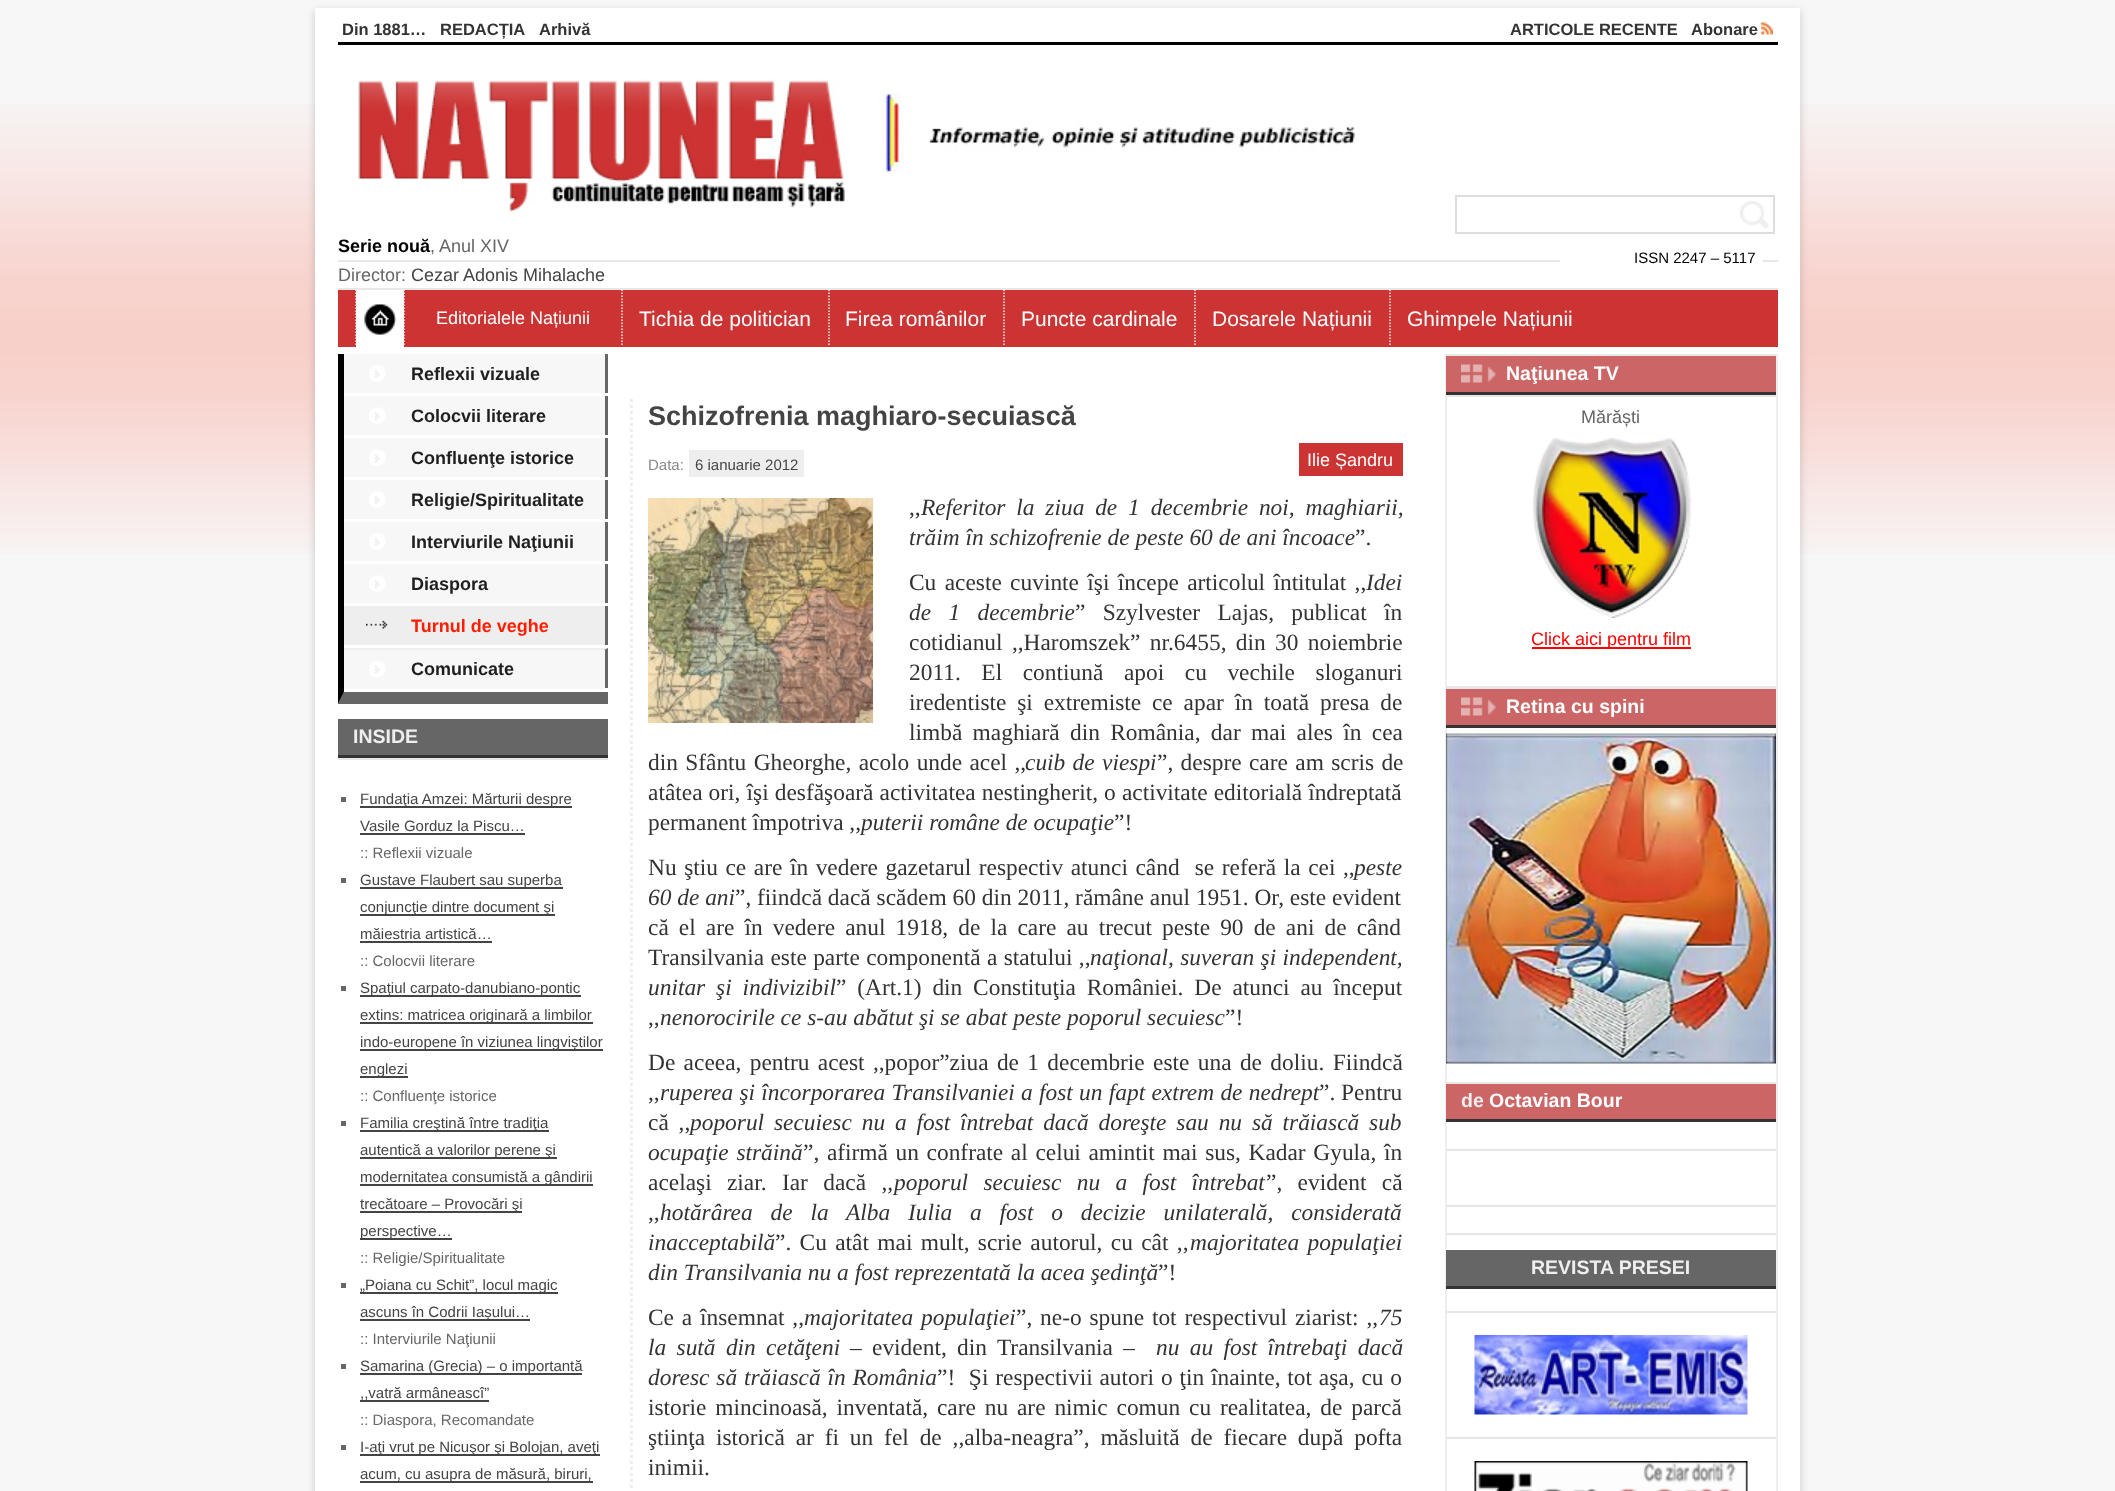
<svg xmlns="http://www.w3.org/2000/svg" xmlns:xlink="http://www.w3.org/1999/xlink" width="2115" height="1491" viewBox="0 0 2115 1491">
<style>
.cls-1{font:bold 16.5px Liberation Sans;fill:#333333}
.cls-2{font:bold 18px Liberation Sans;fill:#000000}
.cls-3{font:18px Liberation Sans;fill:#666666}
.cls-4{font:15px Liberation Sans;fill:#000000}
.cls-5{font:18px Liberation Sans;fill:#444444}
.cls-6{font:18px Liberation Sans;fill:#ffffff}
.cls-7{font:21px Liberation Sans;fill:#ffffff}
.cls-8{font:bold 18px Liberation Sans;fill:#1f1f1f}
.cls-9{font:bold 18px Liberation Sans;fill:#ff1e00}
.cls-10{font:bold 19.5px Liberation Sans;fill:#eeeeee}
.cls-11{font:15px Liberation Sans;fill:#444444}
.cls-12{font:15px Liberation Sans;fill:#666666}
.cls-13{font:bold 27px Liberation Sans;fill:#444444}
.cls-14{font:15px Liberation Sans;fill:#888888}
.cls-15{font:23.4px Liberation Serif;fill:#333333}
.cls-16{font:italic 23.4px Liberation Serif;fill:#333333}
.cls-17{font:bold 19.5px Liberation Sans;fill:#ffffff}
.cls-18{font:18px Liberation Sans;fill:#ff0000}
</style>
<rect width="100%" height="100%" fill="#f7f7f7"/>
<image xlink:href="image0.png" x="0" y="104" width="2115" height="450"/>
<rect fill="#646464" fill-opacity="0.3" filter="blur(4.5px)" x="315" y="11" width="1485" height="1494"/>
<rect fill="#ffffff" x="315" y="8" width="1485" height="1483"/>
<image xlink:href="image1.png" x="1760" y="22" width="13" height="13"/>
<rect fill="#000000" x="338" y="42" width="1440" height="3"/>
<image xlink:href="image2.png" x="358" y="80" width="487" height="132"/>
<image xlink:href="image3.png" x="882" y="93" width="473" height="80"/>
<image xlink:href="image4.png" x="1740" y="201" width="29" height="28"/>
<rect fill="none" stroke="#dddddd" stroke-width="2" x="1456" y="196" width="318" height="37"/>
<rect fill="#e7e7e7" x="338" y="260" width="1440" height="2"/>
<rect fill="#ffffff" x="1560" y="260" width="203" height="2"/>
<rect fill="#e7e7e7" x="338" y="288" width="1440" height="2"/>
<rect fill="#cc3333" x="338" y="290" width="1440" height="57"/>
<rect fill="#ffffff" x="356" y="290" width="48" height="57"/>
<path fill="none" stroke="#eeeeee" stroke-width="1.5" stroke-dasharray="1.5 1.5" d="M356 289.5V346.5"/>
<image xlink:href="image5.png" x="364" y="304" width="32" height="31"/>
<path fill="none" stroke="#eeeeee" stroke-width="1.5" stroke-dasharray="1.5 1.5" d="M404 289.5V346.5"/>
<path fill="none" stroke="#eeeeee" stroke-width="1.5" stroke-dasharray="1.5 1.5" d="M622 289.5V346.5"/>
<path fill="none" stroke="#eeeeee" stroke-width="1.5" stroke-dasharray="1.5 1.5" d="M829 289.5V346.5"/>
<path fill="none" stroke="#eeeeee" stroke-width="1.5" stroke-dasharray="1.5 1.5" d="M1004 289.5V346.5"/>
<path fill="none" stroke="#eeeeee" stroke-width="1.5" stroke-dasharray="1.5 1.5" d="M1195 289.5V346.5"/>
<path fill="none" stroke="#eeeeee" stroke-width="1.5" stroke-dasharray="1.5 1.5" d="M1390 289.5V346.5"/>
<path fill="#666666" d="M608 704H338L344 692H608Z"/>
<path fill="#000000" d="M338 704V354H344V692Z"/>
<rect fill="#666666" x="605" y="354" width="3" height="39"/>
<rect fill="#f7f7f7" x="344" y="354" width="261" height="39"/>
<image xlink:href="image6.png" x="369" y="365" width="17" height="17"/>
<rect fill="#666666" x="605" y="396" width="3" height="39"/>
<rect fill="#f7f7f7" x="344" y="396" width="261" height="39"/>
<image xlink:href="image6.png" x="369" y="407" width="17" height="17"/>
<rect fill="#666666" x="605" y="438" width="3" height="39"/>
<rect fill="#f7f7f7" x="344" y="438" width="261" height="39"/>
<image xlink:href="image6.png" x="369" y="449" width="17" height="17"/>
<rect fill="#666666" x="605" y="480" width="3" height="39"/>
<rect fill="#f7f7f7" x="344" y="480" width="261" height="39"/>
<image xlink:href="image6.png" x="369" y="491" width="17" height="17"/>
<rect fill="#666666" x="605" y="522" width="3" height="39"/>
<rect fill="#f7f7f7" x="344" y="522" width="261" height="39"/>
<image xlink:href="image6.png" x="369" y="533" width="17" height="17"/>
<rect fill="#666666" x="605" y="564" width="3" height="39"/>
<rect fill="#f7f7f7" x="344" y="564" width="261" height="39"/>
<image xlink:href="image6.png" x="369" y="575" width="17" height="17"/>
<rect fill="#666666" x="605" y="606" width="3" height="39"/>
<rect fill="#eeeeee" x="344" y="606" width="261" height="39"/>
<image xlink:href="image7.png" x="366" y="620" width="22" height="9"/>
<path fill="#eeeeee" d="M344 648H608L604 650H344Z"/>
<path fill="#666666" d="M608 648V688H604V650Z"/>
<rect fill="#f7f7f7" x="344" y="650" width="261" height="39"/>
<image xlink:href="image8.png" x="369" y="660" width="17" height="18"/>
<rect fill="#666666" x="338" y="719" width="270" height="36"/>
<rect fill="#333333" x="338" y="755" width="270" height="3"/>
<rect fill="#e7e7e7" x="338" y="758" width="270" height="2"/>
<rect fill="#666666" x="341" y="797" width="5" height="5"/>
<rect fill="#444444" x="360" y="806" width="212" height="2"/>
<rect fill="#444444" x="360" y="833" width="165" height="2"/>
<rect fill="#666666" x="341" y="878" width="5" height="5"/>
<rect fill="#444444" x="360" y="887" width="203" height="2"/>
<rect fill="#444444" x="360" y="914" width="195" height="2"/>
<rect fill="#444444" x="360" y="941" width="132" height="2"/>
<rect fill="#666666" x="341" y="986" width="5" height="5"/>
<rect fill="#444444" x="360" y="995" width="221" height="2"/>
<rect fill="#444444" x="360" y="1022" width="233" height="2"/>
<rect fill="#444444" x="360" y="1049" width="243" height="2"/>
<rect fill="#444444" x="360" y="1076" width="48" height="2"/>
<rect fill="#666666" x="341" y="1121" width="5" height="5"/>
<rect fill="#444444" x="360" y="1130" width="189" height="2"/>
<rect fill="#444444" x="360" y="1157" width="197" height="2"/>
<rect fill="#444444" x="360" y="1184" width="233" height="2"/>
<rect fill="#444444" x="360" y="1211" width="162" height="2"/>
<rect fill="#444444" x="360" y="1238" width="92" height="2"/>
<rect fill="#666666" x="341" y="1283" width="5" height="5"/>
<rect fill="#444444" x="360" y="1292" width="198" height="2"/>
<rect fill="#444444" x="360" y="1319" width="170" height="2"/>
<rect fill="#666666" x="341" y="1364" width="5" height="5"/>
<rect fill="#444444" x="360" y="1373" width="222" height="2"/>
<rect fill="#444444" x="360" y="1400" width="129" height="2"/>
<rect fill="#666666" x="341" y="1445" width="5" height="5"/>
<rect fill="#444444" x="360" y="1454" width="240" height="2"/>
<rect fill="#444444" x="360" y="1481" width="233" height="2"/>
<path fill="none" stroke="#eeeeee" stroke-width="3" stroke-dasharray="3 3" d="M631.5 399V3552"/>
<rect fill="#eeeeee" x="689" y="450" width="115" height="27"/>
<rect fill="#cc3333" x="1299" y="443" width="104" height="33"/>
<image xlink:href="image9.png" x="648" y="498" width="225" height="225"/>
<rect fill="#eeeeee" x="1776" y="354" width="2" height="1137"/>
<rect fill="#eeeeee" x="1445" y="354" width="2" height="1137"/>
<rect fill="#e7e7e7" x="1446" y="354" width="330" height="2"/>
<rect fill="#cc6666" x="1446" y="356" width="330" height="36"/>
<rect fill="#333333" x="1446" y="392" width="330" height="3"/>
<image xlink:href="image10.png" x="1461" y="364" width="35" height="19"/>
<rect fill="#e7e7e7" x="1446" y="395" width="330" height="2"/>
<image xlink:href="image11.png" x="1533" y="438" width="159" height="180"/>
<rect fill="#ff0000" x="1532" y="647" width="159" height="2"/>
<rect fill="#e7e7e7" x="1446" y="686" width="330" height="3"/>
<rect fill="#cc6666" x="1446" y="689" width="330" height="36"/>
<rect fill="#333333" x="1446" y="725" width="330" height="3"/>
<image xlink:href="image10.png" x="1461" y="697" width="35" height="19"/>
<image xlink:href="image12.png" x="1446" y="733" width="330" height="331"/>
<rect fill="#e7e7e7" x="1446" y="1082" width="330" height="2"/>
<rect fill="#cc6666" x="1446" y="1084" width="330" height="35"/>
<rect fill="#333333" x="1446" y="1119" width="330" height="3"/>
<rect fill="#e7e7e7" x="1446" y="1149" width="330" height="2"/>
<rect fill="#e7e7e7" x="1446" y="1205" width="330" height="2"/>
<rect fill="#e7e7e7" x="1446" y="1233" width="330" height="2"/>
<rect fill="#e7e7e7" x="1446" y="1311" width="330" height="2"/>
<rect fill="#666666" x="1446" y="1250" width="330" height="36"/>
<rect fill="#333333" x="1446" y="1286" width="330" height="3"/>
<rect fill="#e7e7e7" x="1446" y="1437" width="330" height="2"/>
<image xlink:href="image13.png" x="1474" y="1335" width="274" height="80"/>
<image xlink:href="image14.png" x="1474" y="1461" width="274" height="30"/>
<text class="cls-1" x="342" y="35">Din 1881…</text>
<text class="cls-1" x="440" y="35">REDACȚIA</text>
<text class="cls-1" x="539" y="35">Arhivă</text>
<text class="cls-1" x="1510" y="35">ARTICOLE RECENTE</text>
<text class="cls-1" x="1691" y="35">Abonare</text>
<text class="cls-2" x="338" y="252">Serie nouă</text>
<text class="cls-3" x="430" y="252">, Anul XIV</text>
<text class="cls-4" x="1634" y="263">ISSN 2247 – 5117</text>
<text class="cls-3" x="338" y="281">Director:</text>
<text class="cls-5" x="411" y="281">Cezar Adonis Mihalache</text>
<text class="cls-6" x="436" y="324">Editorialele Națiunii</text>
<text class="cls-7" x="639" y="326">Tichia de politician</text>
<text class="cls-7" x="845" y="326">Firea românilor</text>
<text class="cls-7" x="1021" y="326">Puncte cardinale</text>
<text class="cls-7" x="1212" y="326">Dosarele Națiunii</text>
<text class="cls-7" x="1407" y="326">Ghimpele Națiunii</text>
<text class="cls-8" x="411" y="380">Reflexii vizuale</text>
<text class="cls-8" x="411" y="422">Colocvii literare</text>
<text class="cls-8" x="411" y="464">Confluenţe istorice</text>
<text class="cls-8" x="411" y="506">Religie/Spiritualitate</text>
<text class="cls-8" x="411" y="548">Interviurile Naţiunii</text>
<text class="cls-8" x="411" y="590">Diaspora</text>
<text class="cls-9" x="411" y="632">Turnul de veghe</text>
<text class="cls-8" x="411" y="675">Comunicate</text>
<text class="cls-10" x="353" y="743">INSIDE</text>
<text class="cls-11"><tspan x="360" y="804">Fundaţia Amzei: Mărturii despre</tspan><tspan x="360" y="831">Vasile Gorduz la Piscu…</tspan></text>
<text class="cls-12" x="360" y="858">:: Reflexii vizuale</text>
<text class="cls-11"><tspan x="360" y="885">Gustave Flaubert sau superba</tspan><tspan x="360" y="912">conjuncţie dintre document şi</tspan><tspan x="360" y="939">măiestria artistică…</tspan></text>
<text class="cls-12" x="360" y="966">:: Colocvii literare</text>
<text class="cls-11"><tspan x="360" y="993">Spațiul carpato-danubiano-pontic</tspan><tspan x="360" y="1020">extins: matricea originară a limbilor</tspan><tspan x="360" y="1047">indo-europene în viziunea lingviștilor</tspan><tspan x="360" y="1074">englezi</tspan></text>
<text class="cls-12" x="360" y="1101">:: Confluenţe istorice</text>
<text class="cls-11"><tspan x="360" y="1128">Familia creştină între tradiţia</tspan><tspan x="360" y="1155">autentică a valorilor perene şi</tspan><tspan x="360" y="1182">modernitatea consumistă a gândirii</tspan><tspan x="360" y="1209">trecătoare – Provocări şi</tspan><tspan x="360" y="1236">perspective…</tspan></text>
<text class="cls-12" x="360" y="1263">:: Religie/Spiritualitate</text>
<text class="cls-11"><tspan x="360" y="1290">„Poiana cu Schit”, locul magic</tspan><tspan x="360" y="1317">ascuns în Codrii Iașului…</tspan></text>
<text class="cls-12" x="360" y="1344">:: Interviurile Naţiunii</text>
<text class="cls-11"><tspan x="360" y="1371">Samarina (Grecia) – o importantă</tspan><tspan x="360" y="1398">,,vatră armâneascî”</tspan></text>
<text class="cls-12" x="360" y="1425">:: Diaspora, Recomandate</text>
<text class="cls-11"><tspan x="360" y="1452">I-aţi vrut pe Nicuşor şi Bolojan, aveţi</tspan><tspan x="360" y="1479">acum, cu asupra de măsură, biruri,</tspan></text>
<text class="cls-13" x="648" y="425">Schizofrenia maghiaro-secuiască</text>
<text class="cls-14" x="648" y="470">Data:</text>
<text class="cls-11" x="695" y="470">6 ianuarie 2012</text>
<text class="cls-6" x="1307" y="466">Ilie Șandru</text>
<text class="cls-15" x="909" y="515">,,</text>
<text class="cls-16" x="921" y="515" word-spacing="5">Referitor la ziua de 1 decembrie noi, maghiarii,</text>
<text class="cls-16" x="909" y="545">trăim în schizofrenie de peste 60 de ani încoace</text>
<text class="cls-15" x="1355" y="545">”.</text>
<text class="cls-15" x="909" y="590" word-spacing="2.5">Cu aceste cuvinte îşi începe articolul întitulat ,,</text>
<text class="cls-16" x="1366" y="590">Idei</text>
<text class="cls-16" x="909" y="620" word-spacing="11.5">de 1 decembrie</text>
<text class="cls-15" x="1075" y="620" word-spacing="11.5">” Szylvester Lajas, publicat în</text>
<text class="cls-15"><tspan x="909" y="650" word-spacing="3.5">cotidianul ,,Haromszek” nr.6455, din 30 noiembrie</tspan><tspan x="909" y="680" word-spacing="14.75">2011. El contiună apoi cu vechile sloganuri</tspan><tspan x="909" y="710" word-spacing="5">iredentiste şi extremiste ce apar în toată presa de</tspan><tspan x="909" y="740" word-spacing="4.5">limbă maghiară din România, dar mai ales în cea</tspan></text>
<text class="cls-15" x="648" y="770" word-spacing="1.5">din Sfântu Gheorghe, acolo unde acel ,,</text>
<text class="cls-16" x="1025" y="770" word-spacing="1.5">cuib de viespi</text>
<text class="cls-15" x="1157" y="770" word-spacing="1.5">”, despre care am scris de</text>
<text class="cls-15"><tspan x="648" y="800" word-spacing="0.25">atâtea ori, îşi desfăşoară activitatea nestingherit, o activitate editorială îndreptată</tspan><tspan x="648" y="830">permanent împotriva ,,</tspan></text>
<text class="cls-16" x="861" y="830">puterii române de ocupaţie</text>
<text class="cls-15" x="1114" y="830">”!</text>
<text class="cls-15" xml:space="preserve" x="648" y="875" word-spacing="1.7">Nu ştiu ce are în vedere gazetarul respectiv atunci când  se referă la cei ,,</text>
<text class="cls-16" x="1354" y="875">peste</text>
<text class="cls-16" x="648" y="905">60 de ani</text>
<text class="cls-15" x="735" y="905">”, fiindcă dacă scădem 60 din 2011, rămâne anul 1951. Or, este evident</text>
<text class="cls-15"><tspan x="648" y="935" word-spacing="4.25">că el are în vedere anul 1918, de la care au trecut peste 90 de ani de când</tspan><tspan x="648" y="965" word-spacing="0.5">Transilvania este parte componentă a statului ,,</tspan></text>
<text class="cls-16" x="1090" y="965" word-spacing="0.5">naţional, suveran şi independent,</text>
<text class="cls-16" x="648" y="995" word-spacing="5">unitar şi indivizibil</text>
<text class="cls-15" x="836" y="995" word-spacing="5">” (Art.1) din Constituţia României. De atunci au început</text>
<text class="cls-15" x="648" y="1025">,,</text>
<text class="cls-16" x="660" y="1025">nenorocirile ce s-au abătut şi se abat peste poporul secuiesc</text>
<text class="cls-15" x="1225" y="1025">”!</text>
<text class="cls-15"><tspan x="648" y="1070" word-spacing="2.5">De aceea, pentru acest ,,popor”ziua de 1 decembrie este una de doliu. Fiindcă</tspan><tspan x="648" y="1100">,,</tspan></text>
<text class="cls-16" x="660" y="1100" word-spacing="0.4">ruperea şi încorporarea Transilvaniei a fost un fapt extrem de nedrept</text>
<text class="cls-15" x="1319" y="1100">”. Pentru</text>
<text class="cls-15" x="648" y="1130" word-spacing="4">că ,,</text>
<text class="cls-16" x="690" y="1130" word-spacing="4">poporul secuiesc nu a fost întrebat dacă doreşte sau nu să trăiască sub</text>
<text class="cls-16" x="648" y="1160" word-spacing="2">ocupaţie străină</text>
<text class="cls-15" x="803" y="1160" word-spacing="1.8">”, afirmă un confrate al celui amintit mai sus, Kadar Gyula, în</text>
<text class="cls-15" x="648" y="1190" word-spacing="9.5">acelaşi ziar. Iar dacă ,,</text>
<text class="cls-16" x="894" y="1190" word-spacing="9.5">poporul secuiesc nu a fost întrebat</text>
<text class="cls-15" x="1266" y="1190" word-spacing="9.5">”, evident că</text>
<text class="cls-15" x="648" y="1220">,,</text>
<text class="cls-16" x="660" y="1220" word-spacing="12">hotărârea de la</text>
<text class="cls-16" x="846" y="1220" word-spacing="12">Alba Iulia a fost o decizie unilaterală, considerată</text>
<text class="cls-16" x="648" y="1250">inacceptabilă</text>
<text class="cls-15" x="775" y="1250" word-spacing="2.5">”. Cu atât mai mult, scrie autorul, cu cât ,,</text>
<text class="cls-16" x="1190" y="1250" word-spacing="2.5">majoritatea populaţiei</text>
<text class="cls-16" x="648" y="1280">din Transilvania nu a fost reprezentată la acea şedinţă</text>
<text class="cls-15" x="1158" y="1280">”!</text>
<text class="cls-15" x="648" y="1325" word-spacing="2">Ce a însemnat ,,</text>
<text class="cls-16" x="804" y="1325" word-spacing="2">majoritatea populaţiei</text>
<text class="cls-15" x="1016" y="1325" word-spacing="2">”, ne-o spune tot respectivul ziarist: ,,</text>
<text class="cls-16" x="1379" y="1325">75</text>
<text class="cls-16" x="648" y="1355" word-spacing="4.5">la sută din cetăţeni</text>
<text class="cls-15" x="850" y="1355" word-spacing="4.5">– evident, din Transilvania –</text>
<text class="cls-16" x="1156" y="1355" word-spacing="4.5">nu au fost întrebaţi dacă</text>
<text class="cls-16" x="648" y="1385" word-spacing="1">doresc să trăiască în România</text>
<text class="cls-15" xml:space="preserve" x="937" y="1385" word-spacing="1">”!  Şi respectivii autori o ţin înainte, tot aşa, cu o</text>
<text class="cls-15"><tspan x="648" y="1415" word-spacing="3">istorie mincinoasă, inventată, care nu are nimic comun cu realitatea, de parcă</tspan><tspan x="648" y="1445" word-spacing="5">ştiinţa istorică ar fi un fel de ,,alba-neagra”, măsluită de fiecare după pofta</tspan><tspan x="648" y="1475">inimii.</tspan></text>
<text class="cls-17" x="1506" y="380">Naţiunea TV</text>
<text class="cls-3" x="1581" y="423">Mărăști</text>
<text class="cls-18" x="1531" y="645">Click aici pentru film</text>
<text class="cls-17" x="1506" y="713">Retina cu spini</text>
<text class="cls-10" x="1461" y="1107">de</text>
<text class="cls-17" x="1489" y="1107">Octavian Bour</text>
<text class="cls-10" x="1531" y="1274">REVISTA PRESEI</text>
</svg>
